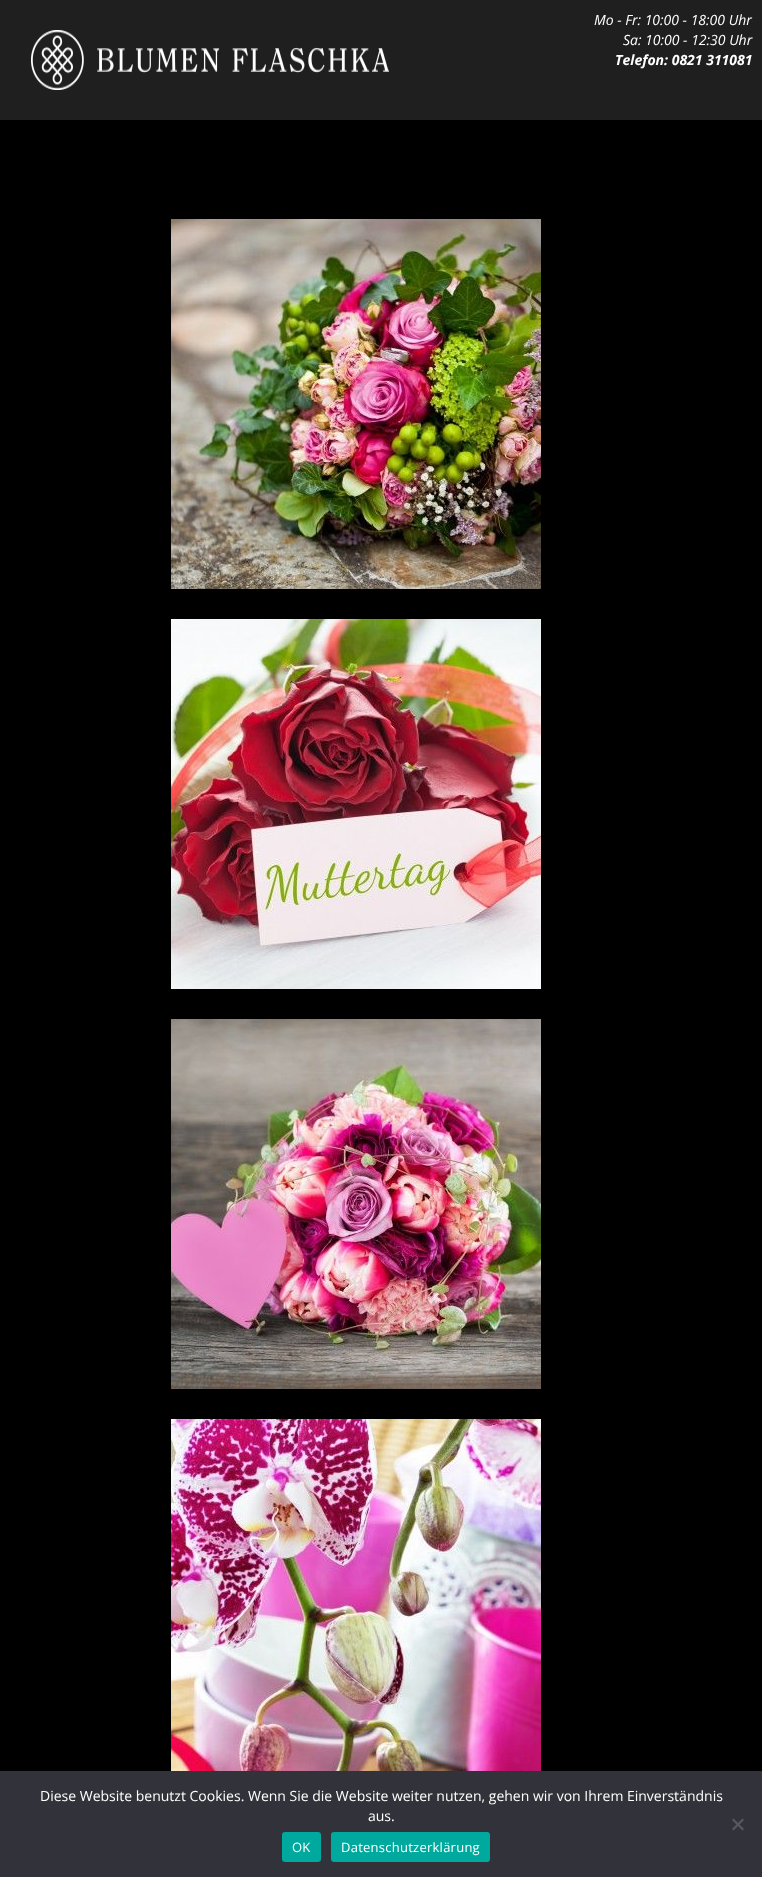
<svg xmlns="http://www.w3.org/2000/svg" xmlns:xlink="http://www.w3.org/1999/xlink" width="762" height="1877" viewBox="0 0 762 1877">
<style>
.cls-1{font:italic 14px Open Sans;fill:#ffffff}
.cls-2{font:italic bold 14px Open Sans;fill:#ffffff}
.cls-3{font:14px Open Sans;fill:#ffffff}
.cls-4{font:13px Open Sans;letter-spacing:0.25px;fill:#ffffff}
</style>
<rect width="100%" height="100%" fill="#000000"/>
<rect fill="#1f1f1f" x="0" y="0" width="762" height="120"/>
<image xlink:href="image0.png" x="31" y="30" width="358" height="60"/>
<image xlink:href="image1.png" x="171" y="219" width="370" height="370"/>
<image xlink:href="image2.png" x="171" y="619" width="370" height="370"/>
<image xlink:href="image3.png" x="171" y="1019" width="370" height="370"/>
<image xlink:href="image4.png" x="171" y="1419" width="370" height="352"/>
<rect fill="#32323a" x="0" y="1771" width="762" height="106"/>
<path fill="#59595d" d="M742.5 1818.5L744 1820L733.5 1830.5L732 1829Z"/>
<path fill="#59595d" d="M732 1820L733.5 1818.5L744 1829L742.5 1830.5Z"/>
<rect fill="#00a99d" x="282" y="1832" width="39" height="30" rx="3"/>
<rect fill="#00a99d" x="331" y="1832" width="159" height="30" rx="3"/>
<text class="cls-1" x="594" y="25">Mo - Fr: 10:00 - 18:00 Uhr</text>
<text class="cls-1" x="623" y="45">Sa: 10:00 - 12:30 Uhr</text>
<text class="cls-2" x="615" y="65">Telefon: 0821 311081</text>
<text class="cls-3" x="40" y="1801">Diese Website benutzt Cookies. Wenn Sie die Website weiter nutzen, gehen wir von Ihrem Einverständnis</text>
<text class="cls-3" x="368" y="1821">aus.</text>
<text class="cls-4" x="292" y="1852">OK</text>
<text class="cls-4" x="341" y="1852">Datenschutzerklärung</text>
</svg>
